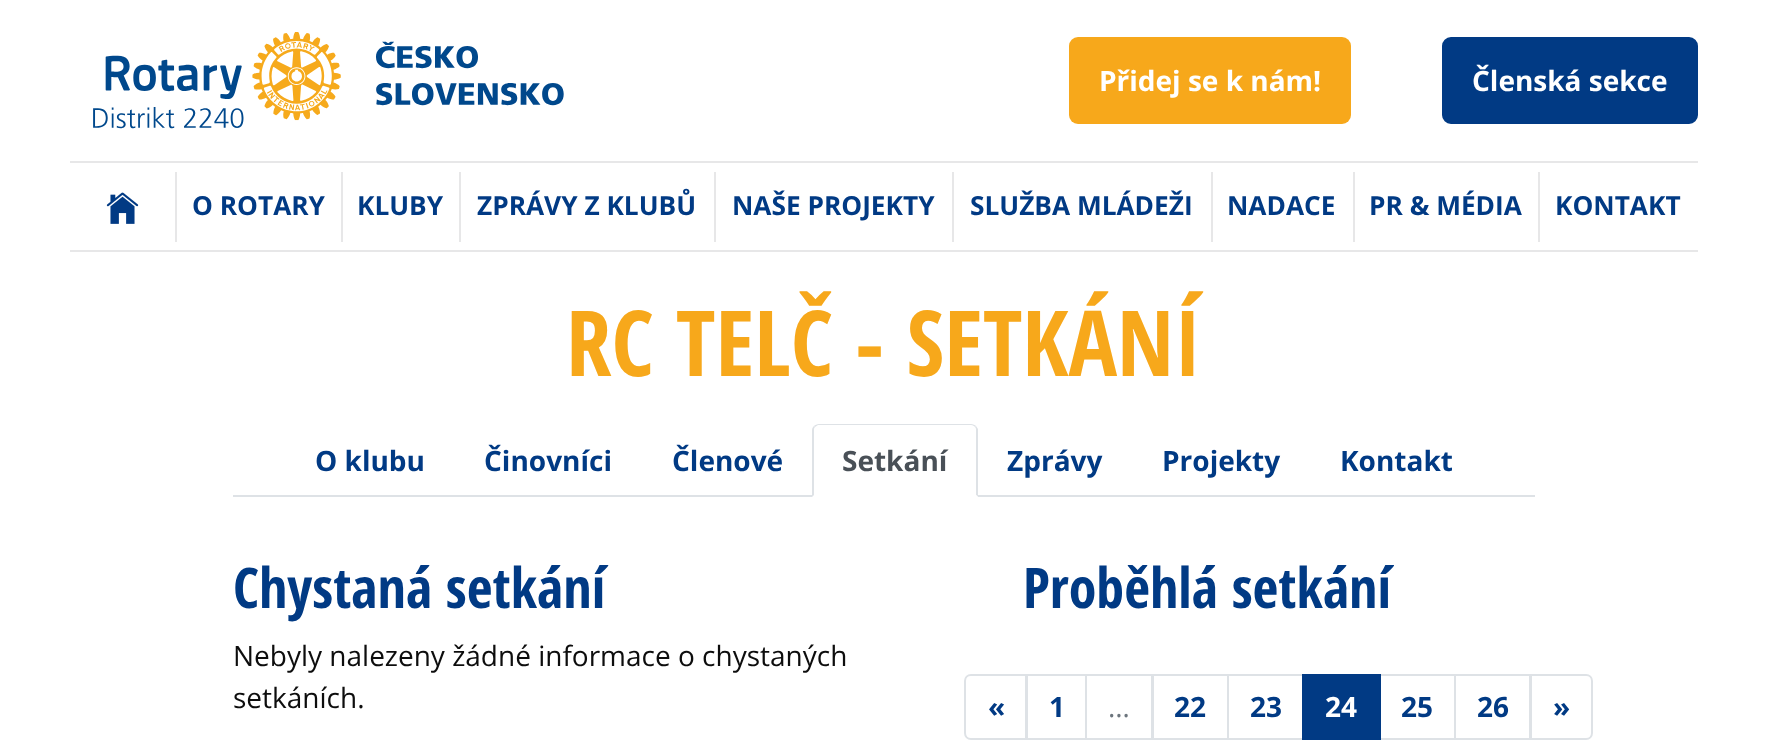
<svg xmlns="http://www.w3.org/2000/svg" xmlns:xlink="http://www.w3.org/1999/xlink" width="1766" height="741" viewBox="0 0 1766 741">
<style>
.cls-1{font:bold 28px Open Sans;fill:#ffffff}
.cls-2{font:bold 26.25px Open Sans;fill:#013a84}
.cls-3{font:bold 91px Open Sans Condensed;fill:#f7a81b}
.cls-4{font:bold 28px Open Sans;fill:#013a84}
.cls-5{font:bold 28px Open Sans;fill:#495057}
.cls-6{font:bold 56px Open Sans Condensed;fill:#013a84}
.cls-7{font:28px Open Sans;fill:#0d0d0d}
.cls-8{font:28px Open Sans;fill:#6c757d}
</style>
<rect width="100%" height="100%" fill="#ffffff"/>
<image xlink:href="image0.png" x="93" y="32" width="471" height="97"/>
<rect fill="#f7a81b" x="1069" y="37" width="282" height="87" rx="9"/>
<rect fill="#013a84" stroke="#013a84" stroke-width="2" x="1443" y="38" width="254" height="85" rx="8"/>
<rect fill="#e7e7e8" x="70" y="161" width="1628" height="2"/>
<rect fill="#e7e7e8" x="70" y="250" width="1628" height="2"/>
<image xlink:href="image1.png" x="106" y="192" width="33" height="32"/>
<rect fill="#e7e7e8" x="175" y="172" width="2" height="70"/>
<rect fill="#e7e7e8" x="341" y="172" width="2" height="70"/>
<rect fill="#e7e7e8" x="459" y="172" width="2" height="70"/>
<rect fill="#e7e7e8" x="714" y="172" width="2" height="70"/>
<rect fill="#e7e7e8" x="952" y="172" width="2" height="70"/>
<rect fill="#e7e7e8" x="1211" y="172" width="2" height="70"/>
<rect fill="#e7e7e8" x="1353" y="172" width="2" height="70"/>
<rect fill="#e7e7e8" x="1538" y="172" width="2" height="70"/>
<rect fill="#dee2e6" x="233" y="495" width="1302" height="2"/>
<path fill="#ffffff" d="M819 424H971C975 424 978 427 978 431V497H812V431C812 427 815 424 819 424Z"/>
<path fill="#dee2e6" d="M819 424C817 424 815 425 814 426L815 427L818 425H971C973 425 974 426 975 427L976 426C975 425 973 424 971 424Z"/>
<path fill="#dee2e6" d="M978 497V429L976 426L975 427C976 428 976 429 976 430V495Z"/>
<path fill="#ffffff" d="M978 497L976 495H814L812 497Z"/>
<path fill="#dee2e6" d="M812 497L814 495V430C814 429 814 428 815 427L814 426C813 427 812 428 812 430Z"/>
<path fill="none" stroke="#dee2e6" stroke-width="2" d="M971 675H1026V739H971C967.5 739 965 736.5 965 733V681C965 677.5 967.5 675 971 675Z"/>
<rect fill="none" stroke="#dee2e6" stroke-width="2" x="1027" y="675" width="59" height="64"/>
<rect fill="none" stroke="#dee2e6" stroke-width="2" x="1086" y="675" width="66" height="64"/>
<rect fill="none" stroke="#dee2e6" stroke-width="2" x="1153" y="675" width="75" height="64"/>
<rect fill="none" stroke="#dee2e6" stroke-width="2" x="1228" y="675" width="75" height="64"/>
<rect fill="none" stroke="#dee2e6" stroke-width="2" x="1380" y="675" width="75" height="64"/>
<rect fill="#013a84" x="1302" y="674" width="79" height="66"/>
<rect fill="none" stroke="#dee2e6" stroke-width="2" x="1455" y="675" width="75" height="64"/>
<path fill="#ffffff" stroke="#dee2e6" stroke-width="2" d="M1531 675H1586C1589.5 675 1592 677.5 1592 681V733C1592 736.5 1589.5 739 1586 739H1531Z"/>
<text class="cls-1" x="1099" y="91">Přidej se k nám!</text>
<text class="cls-1" x="1472" y="91">Členská sekce</text>
<text class="cls-2" x="192" y="215">O ROTARY</text>
<text class="cls-2" x="357" y="215">KLUBY</text>
<text class="cls-2" x="477" y="215">ZPRÁVY Z KLUBŮ</text>
<text class="cls-2" x="732" y="215">NAŠE PROJEKTY</text>
<text class="cls-2" x="970" y="215">SLUŽBA MLÁDEŽI</text>
<text class="cls-2" x="1227" y="215">NADACE</text>
<text class="cls-2" x="1369" y="215">PR &amp; MÉDIA</text>
<text class="cls-2" x="1555" y="215">KONTAKT</text>
<text class="cls-3" x="566" y="376">RC TELČ - SETKÁNÍ</text>
<text class="cls-4" x="315" y="471">O klubu</text>
<text class="cls-4" x="484" y="471">Činovníci</text>
<text class="cls-4" x="672" y="471">Členové</text>
<text class="cls-5" x="842" y="471">Setkání</text>
<text class="cls-4" x="1007" y="471">Zprávy</text>
<text class="cls-4" x="1162" y="471">Projekty</text>
<text class="cls-4" x="1340" y="471">Kontakt</text>
<text class="cls-6" x="233" y="608">Chystaná setkání</text>
<text class="cls-7"><tspan x="233" y="666">Nebyly nalezeny žádné informace o chystaných</tspan><tspan x="233" y="708">setkáních.</tspan></text>
<text class="cls-6" x="1023" y="608">Proběhlá setkání</text>
<text class="cls-4" x="988" y="717">«</text>
<text class="cls-4" x="1049" y="717">1</text>
<text class="cls-8" x="1108" y="717">…</text>
<text class="cls-4" x="1174" y="717">22</text>
<text class="cls-4" x="1250" y="717">23</text>
<text class="cls-1" x="1325" y="717">24</text>
<text class="cls-4" x="1401" y="717">25</text>
<text class="cls-4" x="1477" y="717">26</text>
<text class="cls-4" x="1553" y="717">»</text>
</svg>
